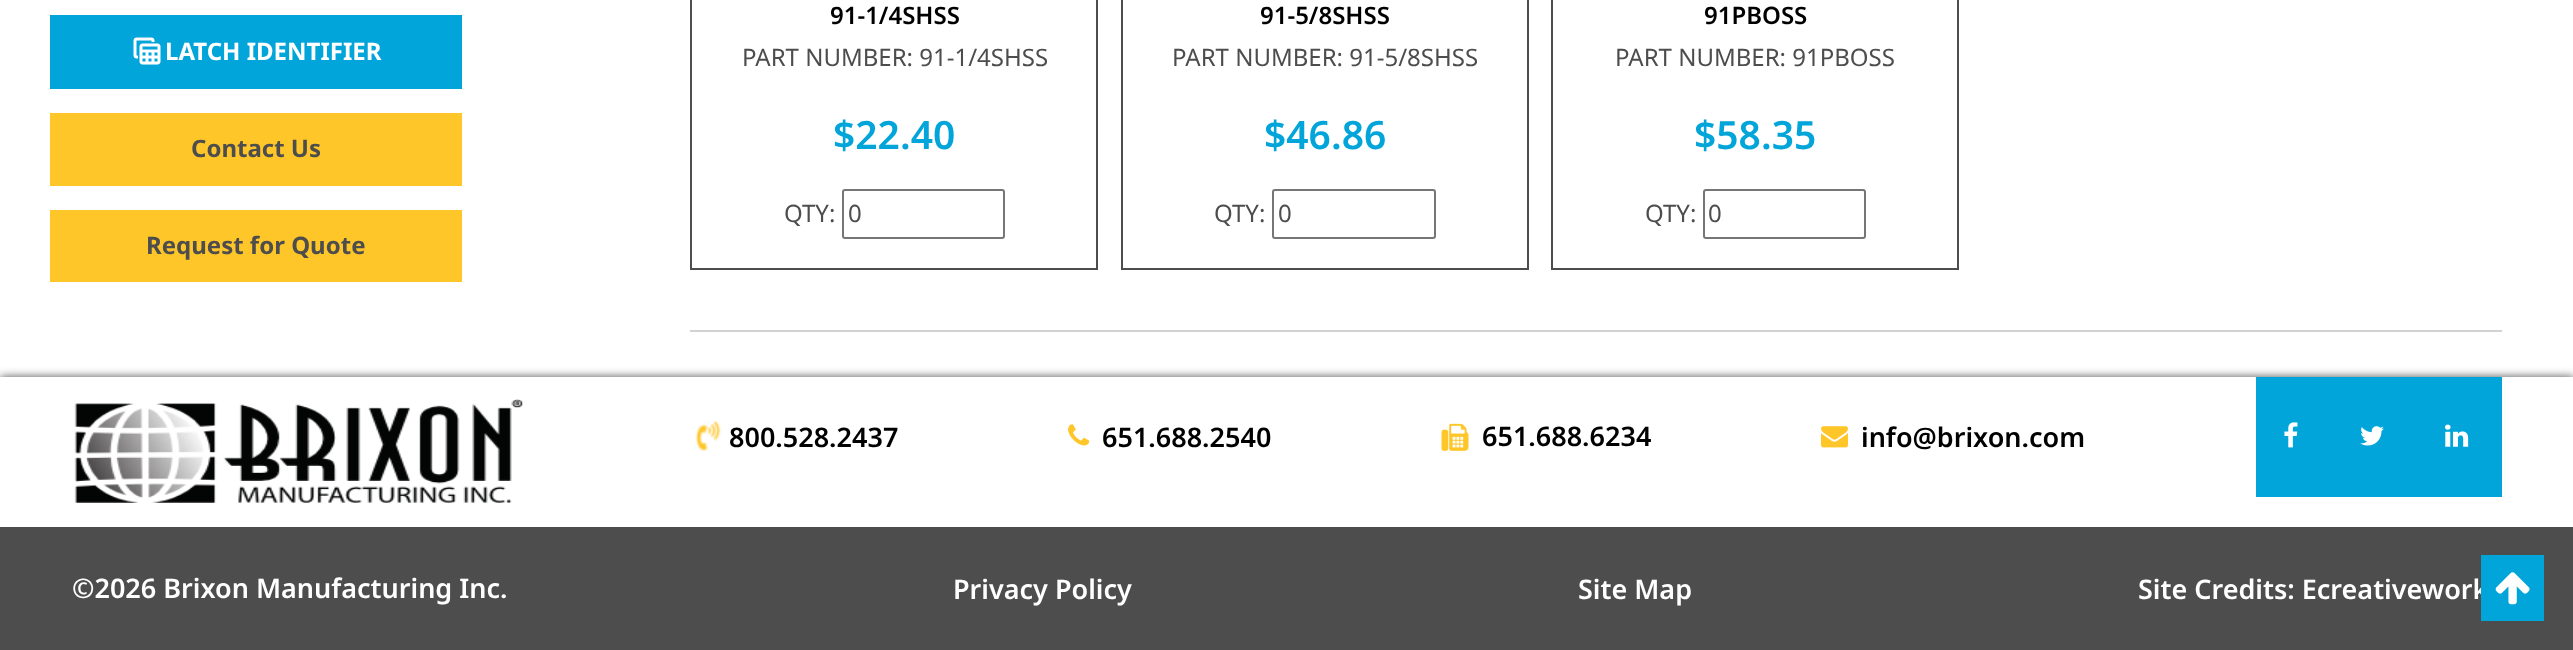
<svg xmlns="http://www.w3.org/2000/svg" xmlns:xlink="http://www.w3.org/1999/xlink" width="2573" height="650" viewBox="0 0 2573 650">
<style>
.cls-1{font:bold 24px Noto Sans;fill:#ffffff}
.cls-2{font:bold 24px Noto Sans;fill:#4d4d4d}
.cls-3{font:600 24px Noto Sans;fill:#000000}
.cls-4{font:24px Noto Sans;fill:#4d4d4d}
.cls-5{font:600 39px Noto Sans;fill:#02a5d9}
.cls-6{font:600 27px Noto Sans;fill:#000000}
.cls-7{font:600 27px Noto Sans;fill:#ffffff}
</style>
<defs>
<clipPath id="clip1"><path d="M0 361H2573V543H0ZM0 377H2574V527H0Z" clip-rule="evenodd"/></clipPath>
</defs>
<rect width="100%" height="100%" fill="#ffffff"/>
<rect fill="#02a5d9" x="50" y="15" width="412" height="74"/>
<image xlink:href="image0.png" x="133" y="37" width="28" height="28"/>
<rect fill="#ffc629" x="50" y="113" width="412" height="73"/>
<rect fill="#ffc629" x="50" y="210" width="412" height="72"/>
<rect fill="none" stroke="#4d4d4d" stroke-width="2" x="691" y="-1" width="406" height="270"/>
<rect fill="none" stroke="#767676" stroke-width="2" x="843" y="190" width="161" height="48" rx="2"/>
<rect fill="none" stroke="#4d4d4d" stroke-width="2" x="1122" y="-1" width="406" height="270"/>
<rect fill="none" stroke="#767676" stroke-width="2" x="1273" y="190" width="162" height="48" rx="2"/>
<rect fill="none" stroke="#4d4d4d" stroke-width="2" x="1552" y="-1" width="406" height="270"/>
<rect fill="none" stroke="#767676" stroke-width="2" x="1704" y="190" width="161" height="48" rx="2"/>
<rect fill="#d2d2d2" x="690" y="330" width="1812" height="2"/>
<g clip-path="url(#clip1)">
<rect fill="#4d4d4d" filter="blur(5px)" x="0" y="377" width="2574" height="150"/>
</g>
<image xlink:href="image1.png" x="74" y="399" width="449" height="104"/>
<image xlink:href="image2.png" x="695" y="421" width="27" height="31"/>
<image xlink:href="image3.png" x="1068" y="424" width="22" height="22"/>
<image xlink:href="image4.png" x="1441" y="423" width="28" height="28"/>
<image xlink:href="image5.png" x="1821" y="426" width="27" height="22"/>
<rect fill="#02a5d9" x="2256" y="377" width="246" height="120"/>
<image xlink:href="image6.png" x="2284" y="422" width="14" height="26"/>
<image xlink:href="image7.png" x="2360" y="426" width="24" height="20"/>
<image xlink:href="image8.png" x="2445" y="424" width="24" height="23"/>
<rect fill="#4d4d4d" x="0" y="527" width="2573" height="123"/>
<text class="cls-1" x="165" y="60">LATCH IDENTIFIER</text>
<text class="cls-2" x="191" y="157">Contact Us</text>
<text class="cls-2" x="146" y="254">Request for Quote</text>
<text class="cls-3" x="830" y="24">91-1/4SHSS</text>
<text class="cls-4" x="742" y="66">PART NUMBER: 91-1/4SHSS</text>
<text class="cls-5" x="833" y="149">$22.40</text>
<text class="cls-4" x="784" y="222">QTY:</text>
<text class="cls-4" x="848" y="222">0</text>
<text class="cls-3" x="1260" y="24">91-5/8SHSS</text>
<text class="cls-4" x="1172" y="66">PART NUMBER: 91-5/8SHSS</text>
<text class="cls-5" x="1264" y="149">$46.86</text>
<text class="cls-4" x="1214" y="222">QTY:</text>
<text class="cls-4" x="1278" y="222">0</text>
<text class="cls-3" x="1704" y="24">91PBOSS</text>
<text class="cls-4" x="1615" y="66">PART NUMBER: 91PBOSS</text>
<text class="cls-5" x="1694" y="149">$58.35</text>
<text class="cls-4" x="1645" y="222">QTY:</text>
<text class="cls-4" x="1708" y="222">0</text>
<text class="cls-6" x="729" y="447">800.528.2437</text>
<text class="cls-6" x="1102" y="447">651.688.2540</text>
<text class="cls-6" x="1482" y="446">651.688.6234</text>
<text class="cls-6" x="1861" y="447">info@brixon.com</text>
<text class="cls-7" x="72" y="598">©2026 Brixon Manufacturing Inc.</text>
<text class="cls-7" x="953" y="599">Privacy Policy</text>
<text class="cls-7" x="1578" y="599">Site Map</text>
<text class="cls-7" x="2138" y="599">Site Credits: Ecreativework</text>
<rect fill="#02a5d9" x="2481" y="555" width="63" height="66"/>
<image xlink:href="image9.png" x="2495" y="572" width="35" height="33"/>
</svg>
